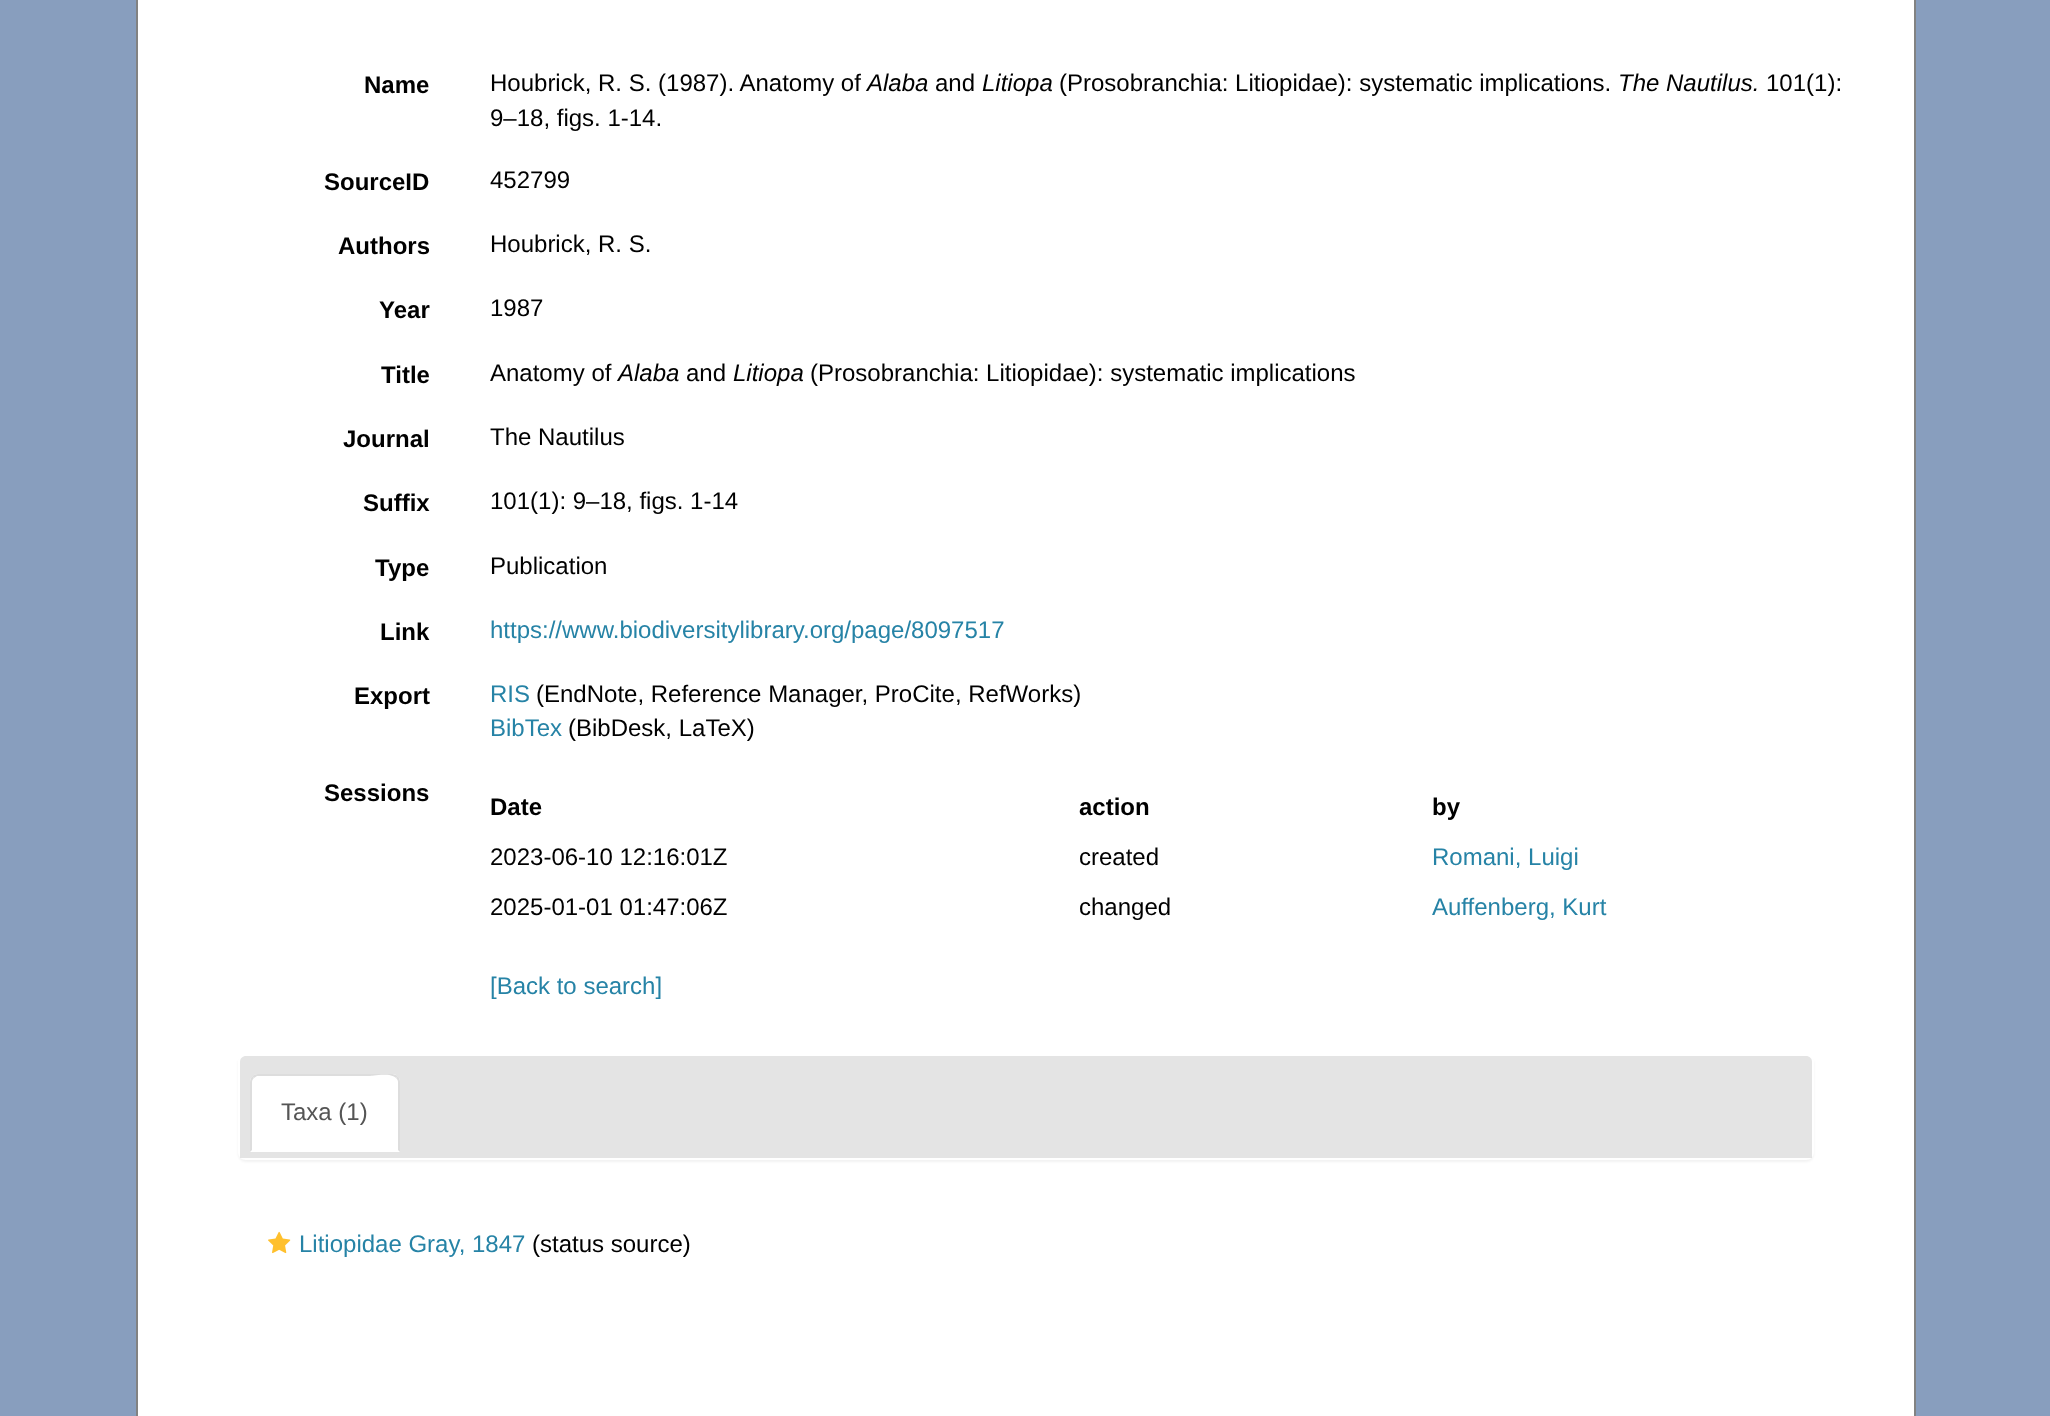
<svg xmlns="http://www.w3.org/2000/svg" xmlns:xlink="http://www.w3.org/1999/xlink" width="2050" height="1416" viewBox="0 0 2050 1416">
<style>
.cls-1{font:bold 24px Liberation Sans;fill:#000000}
.cls-2{font:24px Liberation Sans;fill:#000000}
.cls-3{font:italic 24px Liberation Sans;fill:#000000}
.cls-4{font:24px Liberation Sans;fill:#2683a6}
.cls-5{font:24px Liberation Sans;fill:#555555}
</style>
<defs>
<clipPath id="clip1"><path d="M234 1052H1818V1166H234ZM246 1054H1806C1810.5 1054 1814 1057.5 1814 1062V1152C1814 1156.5 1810.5 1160 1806 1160H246C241.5 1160 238 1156.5 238 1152V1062C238 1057.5 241.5 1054 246 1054Z" clip-rule="evenodd"/></clipPath>
</defs>
<rect width="100%" height="100%" fill="#889ebe"/>
<rect fill="#ffffff" stroke="#828282" stroke-width="2" x="137" y="-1" width="1778" height="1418"/>
<g clip-path="url(#clip1)">
<rect fill="#000000" fill-opacity="0.05" filter="blur(1px)" x="238" y="1056" width="1576" height="106" rx="8"/>
</g>
<path fill="#787878" fill-opacity="0.2" d="M246 1056H1806C1809.5 1056 1812 1058.5 1812 1062V1158H240V1062C240 1058.5 242.5 1056 246 1056Z"/>
<path fill="#ffffff" d="M258 1074H392C396.5 1074 400 1077.5 400 1082V1152H250V1082C250 1077.5 253.5 1074 258 1074Z"/>
<path fill="#dddddd" d="M258 1074C256 1074 254 1075 252 1076L254 1078L257 1076H370C370 1076 391 1072 396 1078L398 1076C396 1075 394 1074 392 1074Z"/>
<path fill="#dddddd" d="M400 1152V1082C400 1080 399 1078 398 1076L396 1078C397 1079 398 1080 398 1082V1150Z"/>
<path fill="#dddddd" d="M250 1152L252 1150V1082C252 1080 253 1079 254 1078L252 1076C251 1078 250 1080 250 1082Z"/>
<image xlink:href="image0.png" x="268" y="1231" width="23" height="23"/>
<text class="cls-1" x="364" y="93">Name</text>
<text class="cls-2" x="490" y="91">Houbrick, R. S. (1987). Anatomy of</text>
<text class="cls-3" x="867" y="91">Alaba</text>
<text class="cls-2" x="935" y="91">and</text>
<text class="cls-3" x="982" y="91">Litiopa</text>
<text class="cls-2" x="1059" y="91">(Prosobranchia: Litiopidae): systematic implications.</text>
<text class="cls-3" x="1618" y="91">The Nautilus.</text>
<text class="cls-2" x="1766" y="91">101(1):</text>
<text class="cls-2" x="490" y="126">9–18, figs. 1-14.</text>
<text class="cls-1" x="324" y="190">SourceID</text>
<text class="cls-2" x="490" y="188">452799</text>
<text class="cls-1" x="338" y="254">Authors</text>
<text class="cls-2" x="490" y="252">Houbrick, R. S.</text>
<text class="cls-1" x="379" y="318">Year</text>
<text class="cls-2" x="490" y="316">1987</text>
<text class="cls-1" x="381" y="383">Title</text>
<text class="cls-2" x="490" y="381">Anatomy of</text>
<text class="cls-3" x="618" y="381">Alaba</text>
<text class="cls-2" x="686" y="381">and</text>
<text class="cls-3" x="733" y="381">Litiopa</text>
<text class="cls-2" x="810" y="381">(Prosobranchia: Litiopidae): systematic implications</text>
<text class="cls-1" x="343" y="447">Journal</text>
<text class="cls-2" x="490" y="445">The Nautilus</text>
<text class="cls-1" x="363" y="511">Suffix</text>
<text class="cls-2" x="490" y="509">101(1): 9–18, figs. 1-14</text>
<text class="cls-1" x="375" y="576">Type</text>
<text class="cls-2" x="490" y="574">Publication</text>
<text class="cls-1" x="380" y="640">Link</text>
<text class="cls-4" x="490" y="638">https://www.biodiversitylibrary.org/page/8097517</text>
<text class="cls-1" x="354" y="704">Export</text>
<text class="cls-4" x="490" y="702">RIS</text>
<text class="cls-2" x="536" y="702">(EndNote, Reference Manager, ProCite, RefWorks)</text>
<text class="cls-4" x="490" y="736">BibTex</text>
<text class="cls-2" x="568" y="736">(BibDesk, LaTeX)</text>
<text class="cls-1" x="324" y="801">Sessions</text>
<text class="cls-1" x="490" y="815">Date</text>
<text class="cls-1" x="1079" y="815">action</text>
<text class="cls-1" x="1432" y="815">by</text>
<text class="cls-2" x="490" y="865">2023-06-10 12:16:01Z</text>
<text class="cls-2" x="1079" y="865">created</text>
<text class="cls-4" x="1432" y="865">Romani, Luigi</text>
<text class="cls-2" x="490" y="915">2025-01-01 01:47:06Z</text>
<text class="cls-2" x="1079" y="915">changed</text>
<text class="cls-4" x="1432" y="915">Auffenberg, Kurt</text>
<text class="cls-4" x="490" y="994">[Back to search]</text>
<text class="cls-5" x="281" y="1120">Taxa (1)</text>
<text class="cls-4" x="299" y="1252">Litiopidae Gray, 1847</text>
<text class="cls-2" x="532" y="1252">(status source)</text>
</svg>
